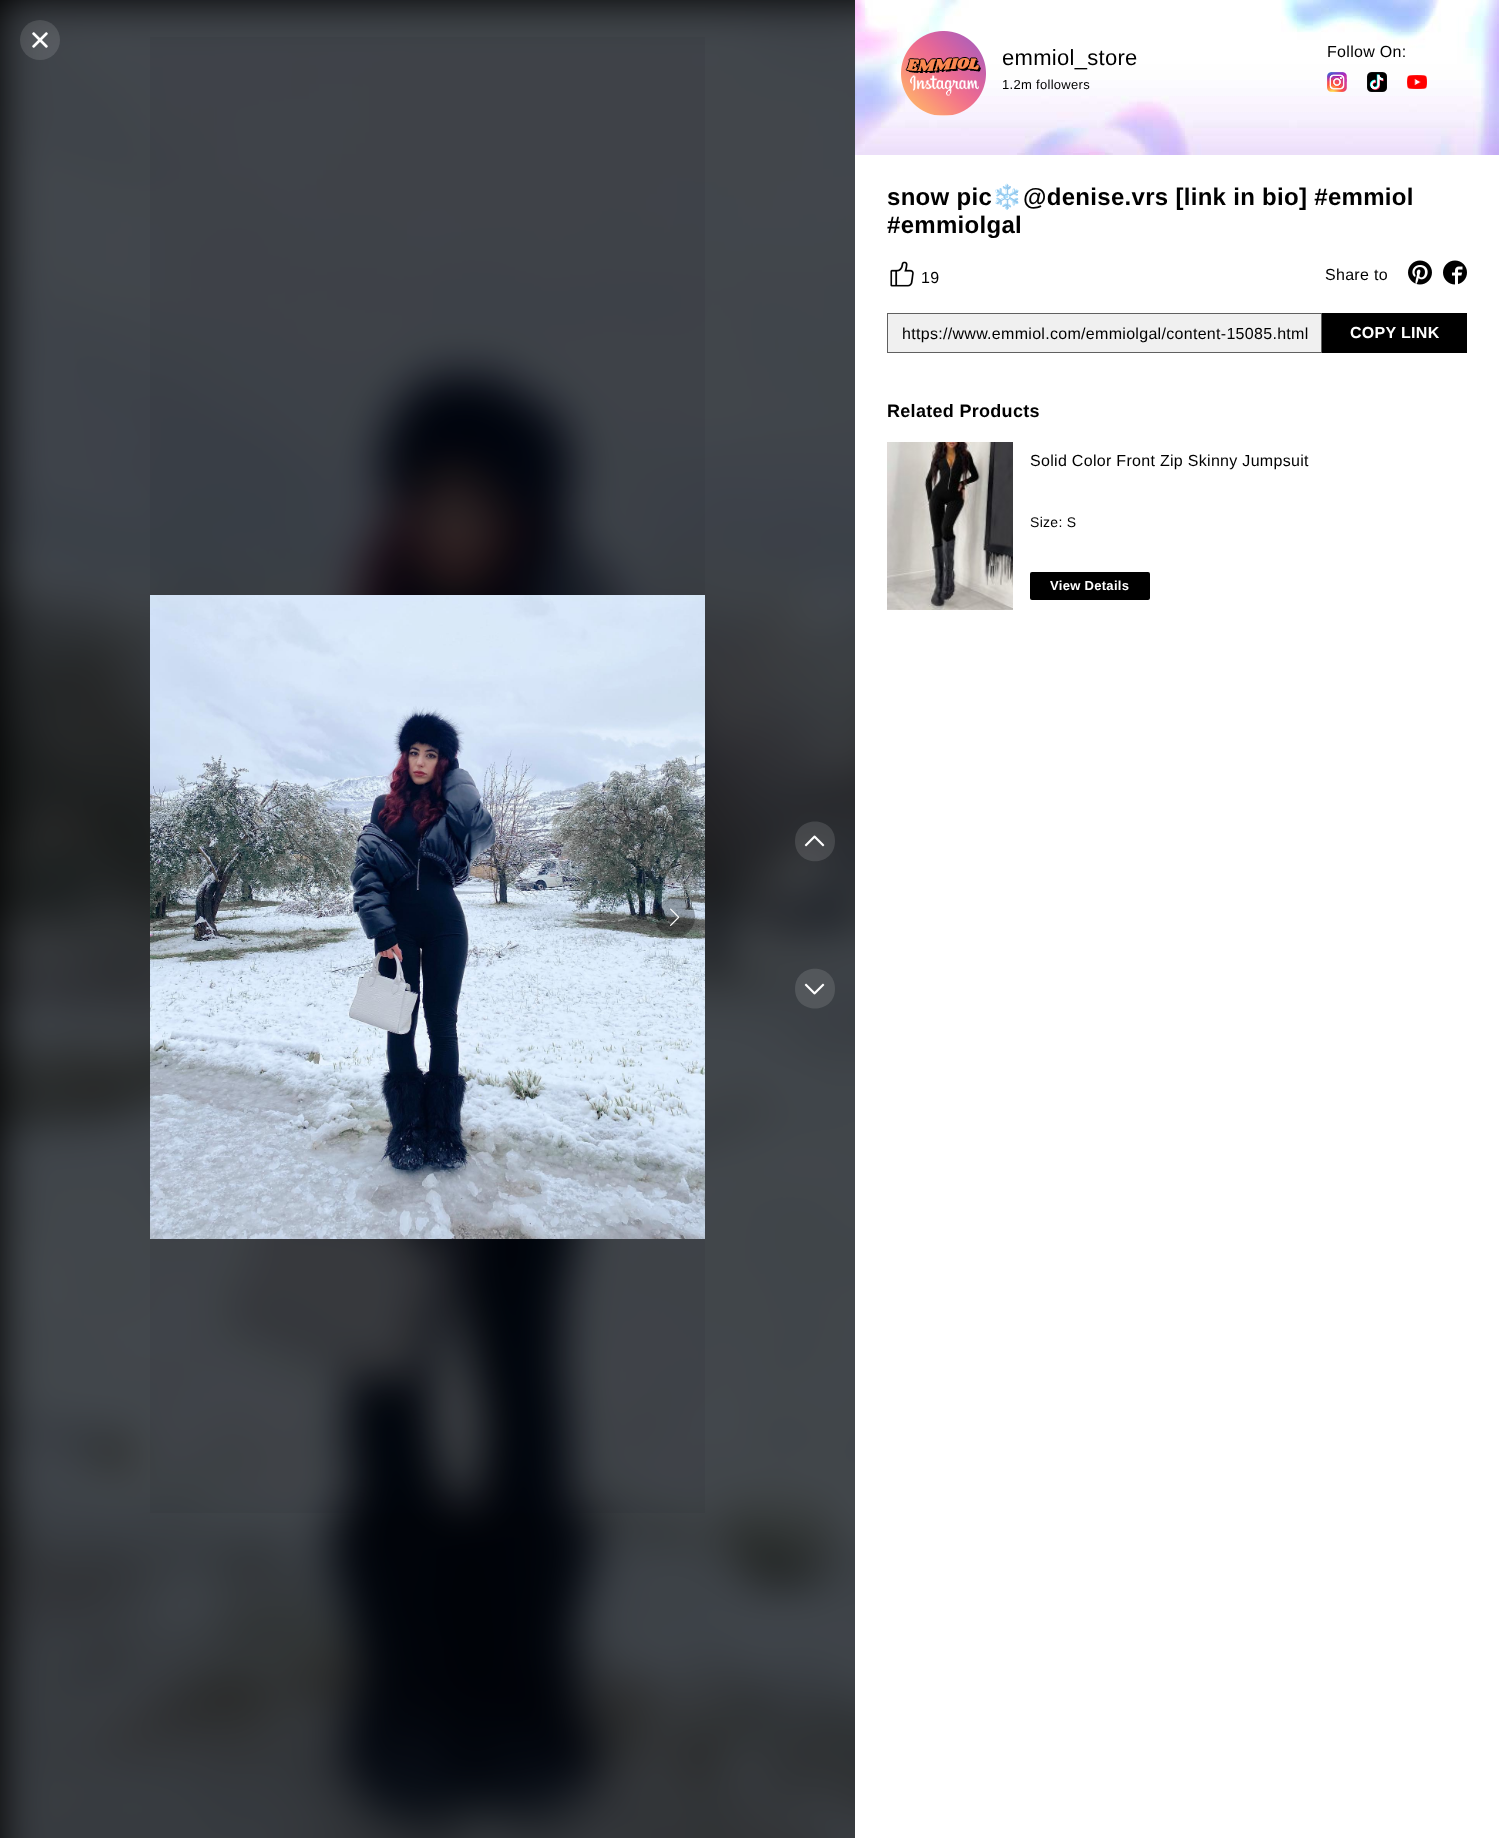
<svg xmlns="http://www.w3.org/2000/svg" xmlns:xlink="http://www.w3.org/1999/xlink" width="1499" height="1838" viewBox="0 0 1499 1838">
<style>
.cls-1{font:22px Liberation Sans;letter-spacing:0.3px;fill:#000000}
.cls-2{font:13px Liberation Sans;letter-spacing:0.3px;fill:#000000}
.cls-3{font:16px Liberation Sans;letter-spacing:0.3px;fill:#000000}
.cls-4{font:bold 24px Liberation Sans;letter-spacing:0.3px;fill:#000000}
.cls-5{font:bold 24px Noto Color Emoji;letter-spacing:0.3px;fill:#000000}
.cls-6{font:bold 16px Liberation Sans;letter-spacing:0.3px;fill:#ffffff}
.cls-7{font:bold 18px Liberation Sans;letter-spacing:0.3px;fill:#000000}
.cls-8{font:14px Liberation Sans;letter-spacing:0.3px;fill:#000000}
.cls-9{font:bold 13px Liberation Sans;letter-spacing:0.3px;fill:#ffffff}
</style>
<rect width="100%" height="100%" fill="#ffffff"/>
<rect fill="#000000" x="0" y="0" width="855" height="1838"/>
<image xlink:href="image0.png" x="0" y="0" width="855" height="1838"/>
<circle fill="#ffffff" fill-opacity="0.12" cx="40" cy="40" r="20"/>
<image xlink:href="image1.png" x="32" y="32" width="16" height="16"/>
<rect fill="#161823" fill-opacity="0.06" x="150" y="37" width="555" height="1476"/>
<image xlink:href="image2.png" x="150" y="595" width="555" height="644"/>
<circle fill="#000000" fill-opacity="0.3" cx="675" cy="917" r="20"/>
<image xlink:href="image3.png" x="670" y="908" width="10" height="18"/>
<path fill="#ffffff" fill-opacity="0.12" d="M795 841C795 815 835 815 835 841C835 868 795 868 795 841Z"/>
<image xlink:href="image4.png" x="804" y="835" width="21" height="12"/>
<path fill="#53575b" d="M835 989C835 1015 795 1015 795 989C795 962 835 962 835 989Z"/>
<image xlink:href="image5.png" x="804" y="983" width="21" height="12"/>
<image xlink:href="image6.png" x="855" y="0" width="644" height="155"/>
<image xlink:href="image7.png" x="901" y="31" width="85" height="85"/>
<image xlink:href="image8.png" x="1327" y="72" width="20" height="20"/>
<image xlink:href="image9.png" x="1367" y="72" width="20" height="20"/>
<image xlink:href="image10.png" x="1407" y="75" width="20" height="14"/>
<image xlink:href="image11.png" x="890" y="261" width="24" height="26"/>
<image xlink:href="image12.png" x="1408" y="260" width="24" height="25"/>
<image xlink:href="image13.png" x="1443" y="260" width="24" height="25"/>
<rect fill="#f0f0f0" stroke="#606060" x="887.5" y="313.5" width="434" height="39"/>
<rect fill="#000000" x="1322" y="313" width="145" height="40"/>
<image xlink:href="image14.png" x="887" y="442" width="126" height="168"/>
<rect fill="#000000" x="1030" y="572" width="120" height="28" rx="2"/>
<text class="cls-1" x="1002" y="65">emmiol_store</text>
<text class="cls-2" x="1002" y="89">1.2m followers</text>
<text class="cls-3" x="1327" y="57">Follow On:</text>
<text class="cls-4" x="887" y="205">snow pic</text>
<text class="cls-5" x="992" y="205">❄️</text>
<text class="cls-4" x="1023" y="205">@denise.vrs [link in bio] #emmiol</text>
<text class="cls-4" x="887" y="233">#emmiolgal</text>
<text class="cls-3" x="921" y="283">19</text>
<text class="cls-3" x="1325" y="280">Share to</text>
<text class="cls-3" x="902" y="339">https://www.emmiol.com/emmiolgal/content-15085.html</text>
<text class="cls-6" x="1350" y="338">COPY LINK</text>
<text class="cls-7" x="887" y="417">Related Products</text>
<text class="cls-3" x="1030" y="466">Solid Color Front Zip Skinny Jumpsuit</text>
<text class="cls-8" x="1030" y="527">Size: S</text>
<text class="cls-9" x="1050" y="590">View Details</text>
</svg>
